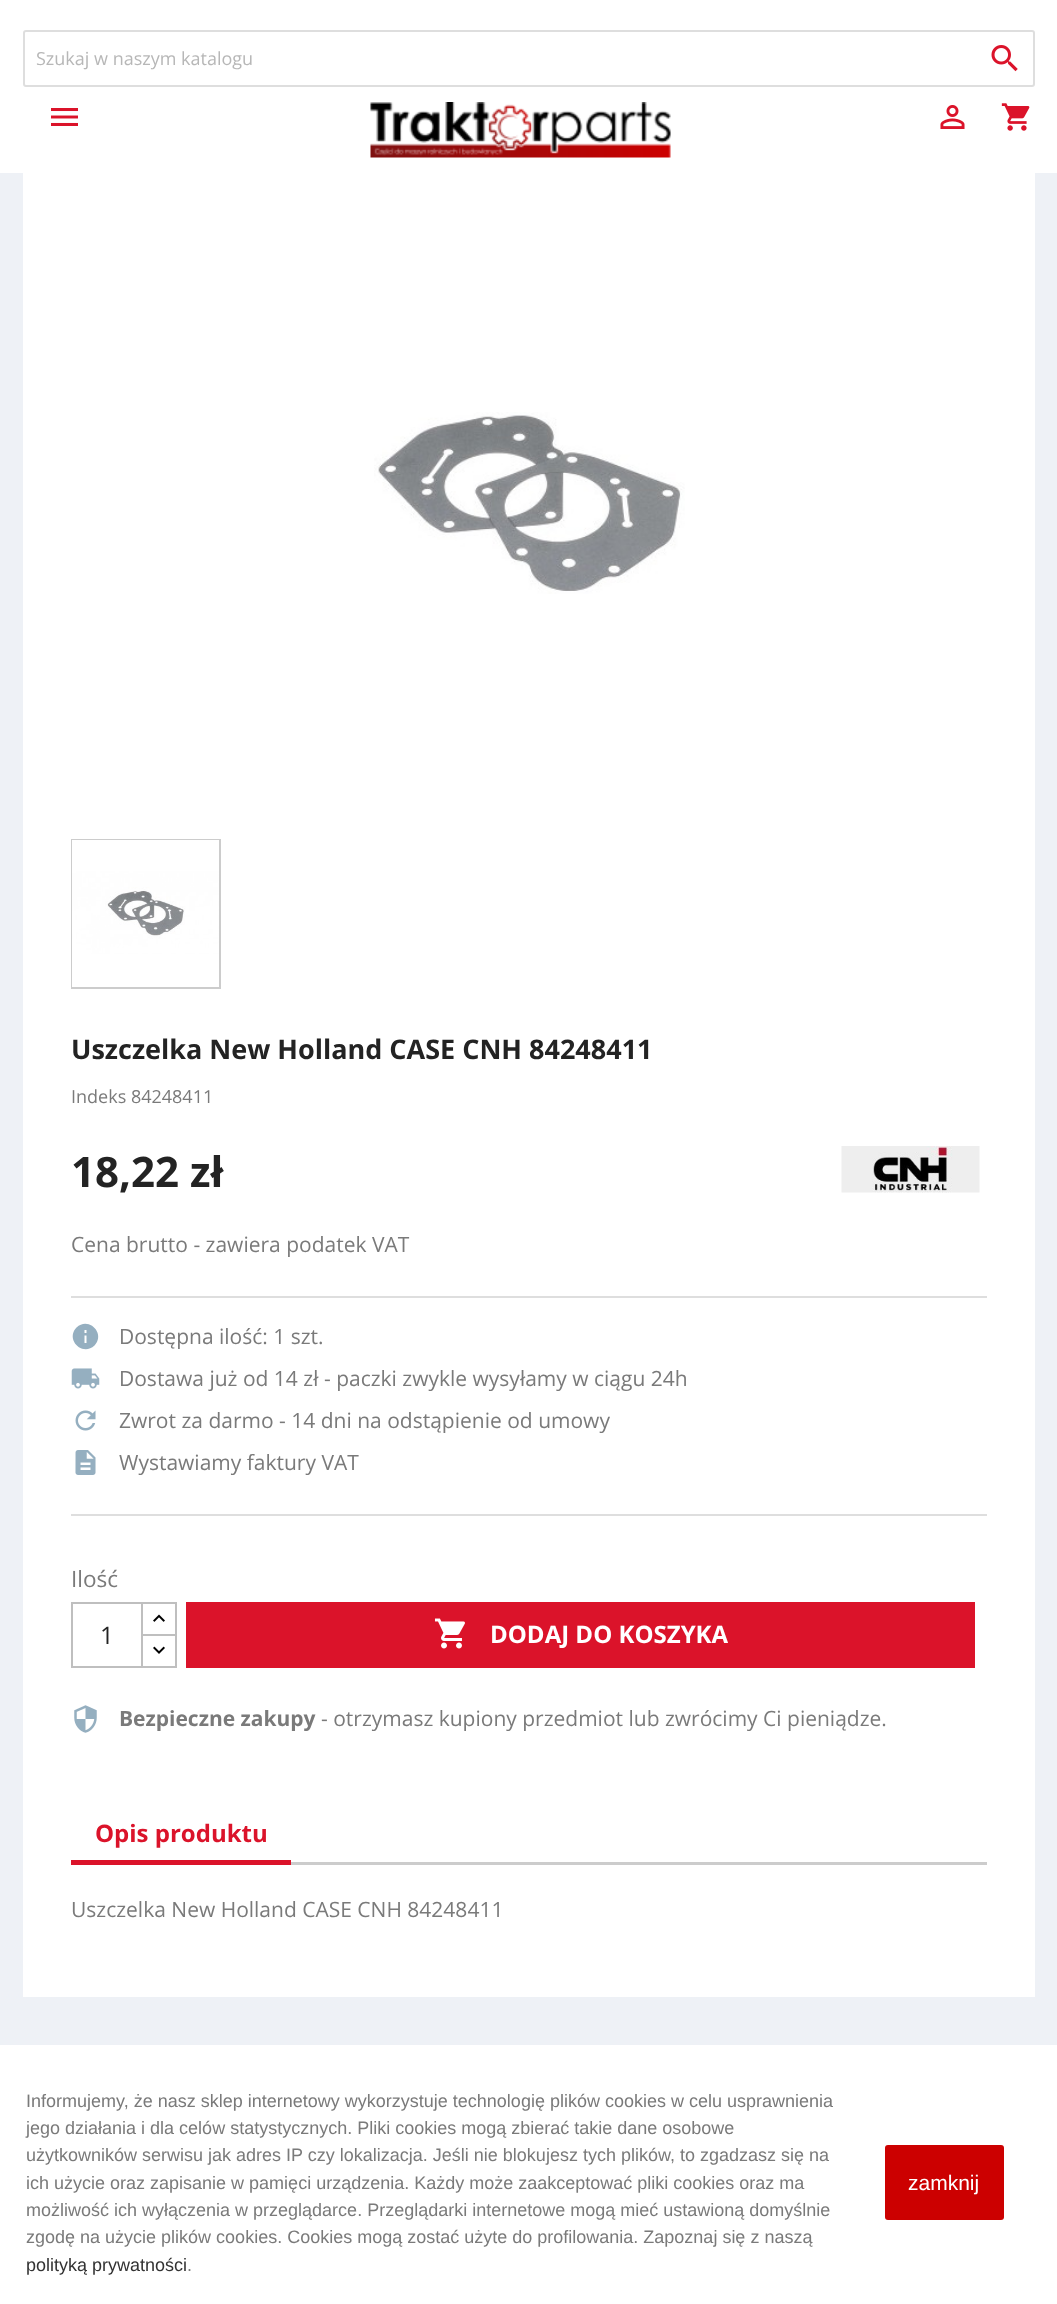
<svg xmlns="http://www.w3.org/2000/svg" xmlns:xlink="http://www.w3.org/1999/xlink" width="1057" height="2304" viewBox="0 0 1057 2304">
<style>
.cls-1{font:18px Open Sans;fill:#b7b7b7}
.cls-2{font:bold 27px Open Sans;fill:#232323}
.cls-3{font:18px Open Sans;fill:#7a7a7a}
.cls-4{font:bold 42px Open Sans;fill:#232323}
.cls-5{font:21px Open Sans;fill:#7a7a7a}
.cls-6{font:22.5px Open Sans;fill:#7a7a7a}
.cls-7{font:24px Open Sans;fill:#232323}
.cls-8{font:bold 24px Open Sans;fill:#ffffff}
.cls-9{font:bold 21px Open Sans;fill:#7a7a7a}
.cls-10{font:bold 24px Open Sans;fill:#db132a}
.cls-11{font:18px Liberation Sans;fill:#7a7a7a}
.cls-12{font:18px Liberation Sans;fill:#333333}
.cls-13{font:21px Liberation Sans;fill:#ffffff}
</style>
<rect width="100%" height="100%" fill="#eef1f6"/>
<rect fill="#ffffff" x="0" y="0" width="1057" height="173"/>
<rect fill="none" stroke="#dedede" stroke-width="2" x="24" y="31" width="1010" height="55" rx="2"/>
<image xlink:href="image0.png" x="991" y="45" width="27" height="27"/>
<image xlink:href="image1.png" x="51" y="108" width="27" height="18"/>
<image xlink:href="image2.png" x="370" y="102" width="301" height="56"/>
<image xlink:href="image3.png" x="940" y="105" width="25" height="24"/>
<image xlink:href="image4.png" x="1001" y="103" width="29" height="28"/>
<rect fill="#ffffff" x="23" y="173" width="1012" height="1824"/>
<image xlink:href="image5.png" x="374" y="412" width="311" height="182"/>
<rect fill="none" stroke="#cccccc" stroke-width="2" x="72" y="840" width="148" height="148"/>
<image xlink:href="image6.png" x="72" y="840" width="147" height="147"/>
<image xlink:href="image7.png" x="841" y="1146" width="139" height="47"/>
<rect fill="#dedede" x="71" y="1296" width="916" height="2"/>
<rect fill="#dedede" x="71" y="1514" width="916" height="2"/>
<path fill="#95afc0" d="M86.5 1333V1330H84.5V1333ZM86.5 1343V1335.5H84.5V1343ZM76.5 1327.5C88.5 1316 106 1333.5 94.5 1345.5C82.5 1357 65 1339.5 76.5 1327.5Z"/>
<image xlink:href="image8.png" x="71" y="1368" width="29" height="21"/>
<image xlink:href="image9.png" x="75" y="1410" width="21" height="21"/>
<image xlink:href="image10.png" x="75" y="1450" width="21" height="25"/>
<rect fill="none" stroke="#bfbfbf" stroke-width="2" x="142" y="1603" width="34" height="33"/>
<rect fill="#ffffff" x="143" y="1636" width="32" height="1"/>
<rect fill="none" stroke="#bfbfbf" stroke-width="2" x="142" y="1635" width="34" height="32"/>
<rect fill="none" stroke="#bfbfbf" stroke-width="2" x="72" y="1603" width="70" height="64"/>
<image xlink:href="image11.png" x="153" y="1614" width="12" height="8"/>
<image xlink:href="image12.png" x="153" y="1646" width="12" height="8"/>
<rect fill="#db132a" x="186" y="1602" width="789" height="66"/>
<image xlink:href="image13.png" x="434" y="1618" width="31" height="31"/>
<image xlink:href="image14.png" x="74" y="1705" width="23" height="28"/>
<rect fill="#cccccc" x="291" y="1862" width="696" height="3"/>
<rect fill="#db132a" x="71" y="1860" width="220" height="5"/>
<rect fill="#ffffff" x="0" y="2045" width="1057" height="259"/>
<rect fill="#cc0000" x="885" y="2145" width="119" height="75" rx="3"/>
<text class="cls-1" x="36" y="65">Szukaj w naszym katalogu</text>
<text class="cls-2" x="71" y="1059">Uszczelka New Holland CASE CNH 84248411</text>
<text class="cls-3" x="71" y="1103">Indeks 84248411</text>
<text class="cls-4" x="71" y="1187">18,22 zł</text>
<text class="cls-5" x="71" y="1252">Cena brutto - zawiera podatek VAT</text>
<text class="cls-5" x="119" y="1344">Dostępna ilość: 1 szt.</text>
<text class="cls-5" x="119" y="1386">Dostawa już od 14 zł - paczki zwykle wysyłamy w ciągu 24h</text>
<text class="cls-5" x="119" y="1428">Zwrot za darmo - 14 dni na odstąpienie od umowy</text>
<text class="cls-5" x="119" y="1470">Wystawiamy faktury VAT</text>
<text class="cls-6" x="71" y="1587">Ilość</text>
<text class="cls-7" x="100" y="1644">1</text>
<text class="cls-8" x="490" y="1643">DODAJ DO KOSZYKA</text>
<text class="cls-9" x="119" y="1726">Bezpieczne zakupy</text>
<text class="cls-5" x="321" y="1726">- otrzymasz kupiony przedmiot lub zwrócimy Ci pieniądze.</text>
<text class="cls-10" x="95" y="1842">Opis produktu</text>
<text class="cls-5" x="71" y="1917">Uszczelka New Holland CASE CNH 84248411</text>
<text class="cls-11"><tspan x="26" y="2107">Informujemy, że nasz sklep internetowy wykorzystuje technologię plików cookies w celu usprawnienia</tspan><tspan x="26" y="2134">jego działania i dla celów statystycznych. Pliki cookies mogą zbierać takie dane osobowe</tspan><tspan x="26" y="2161">użytkowników serwisu jak adres IP czy lokalizacja. Jeśli nie blokujesz tych plików, to zgadzasz się na</tspan><tspan x="26" y="2189">ich użycie oraz zapisanie w pamięci urządzenia. Każdy może zaakceptować pliki cookies oraz ma</tspan><tspan x="26" y="2216">możliwość ich wyłączenia w przeglądarce. Przeglądarki internetowe mogą mieć ustawioną domyślnie</tspan><tspan x="26" y="2243">zgodę na użycie plików cookies. Cookies mogą zostać użyte do profilowania. Zapoznaj się z naszą</tspan></text>
<text class="cls-12" x="26" y="2271">polityką prywatności</text>
<text class="cls-11" x="187" y="2271">.</text>
<text class="cls-13" x="908" y="2190">zamknij</text>
</svg>
